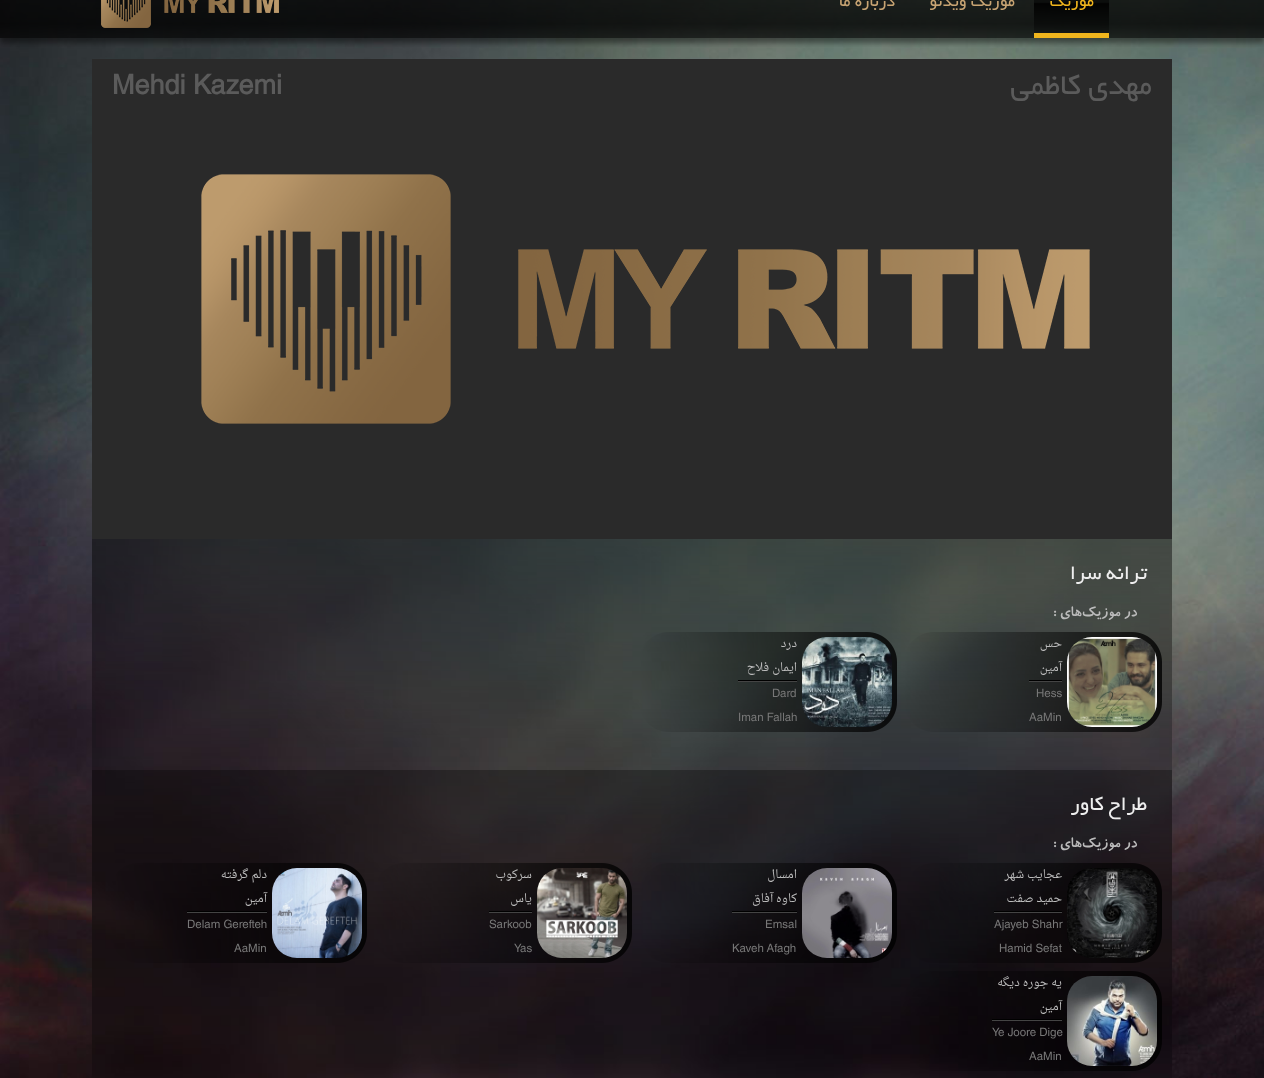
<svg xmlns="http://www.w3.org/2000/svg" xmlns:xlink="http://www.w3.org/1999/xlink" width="1264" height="1078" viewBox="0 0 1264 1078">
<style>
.cls-1{font:18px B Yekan;direction:rtl;fill:#f0b51d}
.cls-2{font:18px B Yekan;direction:rtl;fill:#c8a473}
.cls-3{font:32px B Yekan;direction:rtl;fill:#5b5b5b}
.cls-4{font:bold 27px Helvetica;fill:#5b5b5b}
.cls-5{font:22px B Yekan;direction:rtl;fill:#eeeeee}
.cls-6{font:bold 16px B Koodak;direction:rtl;fill:#bbbbbb}
.cls-7{font:11.5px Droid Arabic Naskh;direction:rtl;fill:#bbbbbb}
.cls-8{font:11.5px Helvetica;fill:#777777}
</style>
<defs>
<clipPath id="clip1"><rect x="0" y="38" width="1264" height="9"/></clipPath>
</defs>
<rect width="100%" height="100%" fill="#ffffff"/>
<image xlink:href="image0.png" x="0" y="0" width="1264" height="1078"/>
<g clip-path="url(#clip1)">
<rect fill="#000000" fill-opacity="0.4" filter="blur(2.5px)" x="0" y="-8" width="1264" height="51"/>
</g>
<rect fill="#f0b51d" x="1034" y="33" width="75" height="5"/>
<image xlink:href="image1.png" x="101" y="0" width="178" height="28"/>
<image xlink:href="image2.png" x="92" y="539" width="1080" height="539"/>
<image xlink:href="image3.png" x="92" y="59" width="1080" height="480"/>
<image xlink:href="image4.png" x="1067" y="637" width="90" height="90"/>
<rect fill="#000000" x="1029" y="680" width="33" height="1"/>
<rect fill="#444444" x="1029" y="681" width="33" height="1"/>
<image xlink:href="image5.png" x="802" y="637" width="90" height="90"/>
<rect fill="#000000" x="738" y="680" width="59" height="1"/>
<rect fill="#444444" x="738" y="681" width="59" height="1"/>
<image xlink:href="image6.png" x="1067" y="868" width="90" height="90"/>
<rect fill="#000000" x="994" y="911" width="68" height="1"/>
<rect fill="#444444" x="994" y="912" width="68" height="1"/>
<image xlink:href="image7.png" x="802" y="868" width="90" height="90"/>
<rect fill="#000000" x="732" y="911" width="65" height="1"/>
<rect fill="#444444" x="732" y="912" width="65" height="1"/>
<image xlink:href="image8.png" x="537" y="868" width="90" height="90"/>
<rect fill="#000000" x="489" y="911" width="43" height="1"/>
<rect fill="#444444" x="489" y="912" width="43" height="1"/>
<image xlink:href="image9.png" x="272" y="868" width="90" height="90"/>
<rect fill="#000000" x="187" y="911" width="80" height="1"/>
<rect fill="#444444" x="187" y="912" width="80" height="1"/>
<image xlink:href="image10.png" x="1067" y="976" width="90" height="90"/>
<rect fill="#000000" x="992" y="1019" width="70" height="1"/>
<rect fill="#444444" x="992" y="1020" width="70" height="1"/>
<text class="cls-1" x="1094" y="6">موزیک</text>
<text class="cls-2" x="1015" y="6">موزیک ویدئو</text>
<text class="cls-2" x="895" y="6">درباره ما</text>
<text class="cls-3" x="1152" y="94">مهدی کاظمی</text>
<text class="cls-4" x="112" y="94">Mehdi Kazemi</text>
<text class="cls-5" x="1147" y="579">ترانه سرا</text>
<text class="cls-6" x="1137" y="616">در موزیک‌های :</text>
<text class="cls-7" x="1062" y="647">حس</text>
<text class="cls-7" x="1062" y="671">آمین</text>
<text class="cls-8" x="1036" y="697">Hess</text>
<text class="cls-8" x="1029" y="721">AaMin</text>
<text class="cls-7" x="797" y="647">درد</text>
<text class="cls-7" x="797" y="671">ایمان فلاح</text>
<text class="cls-8" x="772" y="697">Dard</text>
<text class="cls-8" x="738" y="721">Iman Fallah</text>
<text class="cls-5" x="1147" y="810">طراح کاور</text>
<text class="cls-6" x="1137" y="847">در موزیک‌های :</text>
<text class="cls-7" x="1062" y="878">عجایب شهر</text>
<text class="cls-7" x="1062" y="902">حمید صفت</text>
<text class="cls-8" x="994" y="928">Ajayeb Shahr</text>
<text class="cls-8" x="999" y="952">Hamid Sefat</text>
<text class="cls-7" x="797" y="878">امسال</text>
<text class="cls-7" x="797" y="902">کاوه آفاق</text>
<text class="cls-8" x="765" y="928">Emsal</text>
<text class="cls-8" x="732" y="952">Kaveh Afagh</text>
<text class="cls-7" x="532" y="878">سرکوب</text>
<text class="cls-7" x="532" y="902">یاس</text>
<text class="cls-8" x="489" y="928">Sarkoob</text>
<text class="cls-8" x="514" y="952">Yas</text>
<text class="cls-7" x="267" y="878">دلم گرفته</text>
<text class="cls-7" x="267" y="902">آمین</text>
<text class="cls-8" x="187" y="928">Delam Gerefteh</text>
<text class="cls-8" x="234" y="952">AaMin</text>
<text class="cls-7" x="1062" y="986">یه جوره دیگه</text>
<text class="cls-7" x="1062" y="1010">آمین</text>
<text class="cls-8" x="992" y="1036">Ye Joore Dige</text>
<text class="cls-8" x="1029" y="1060">AaMin</text>
</svg>
